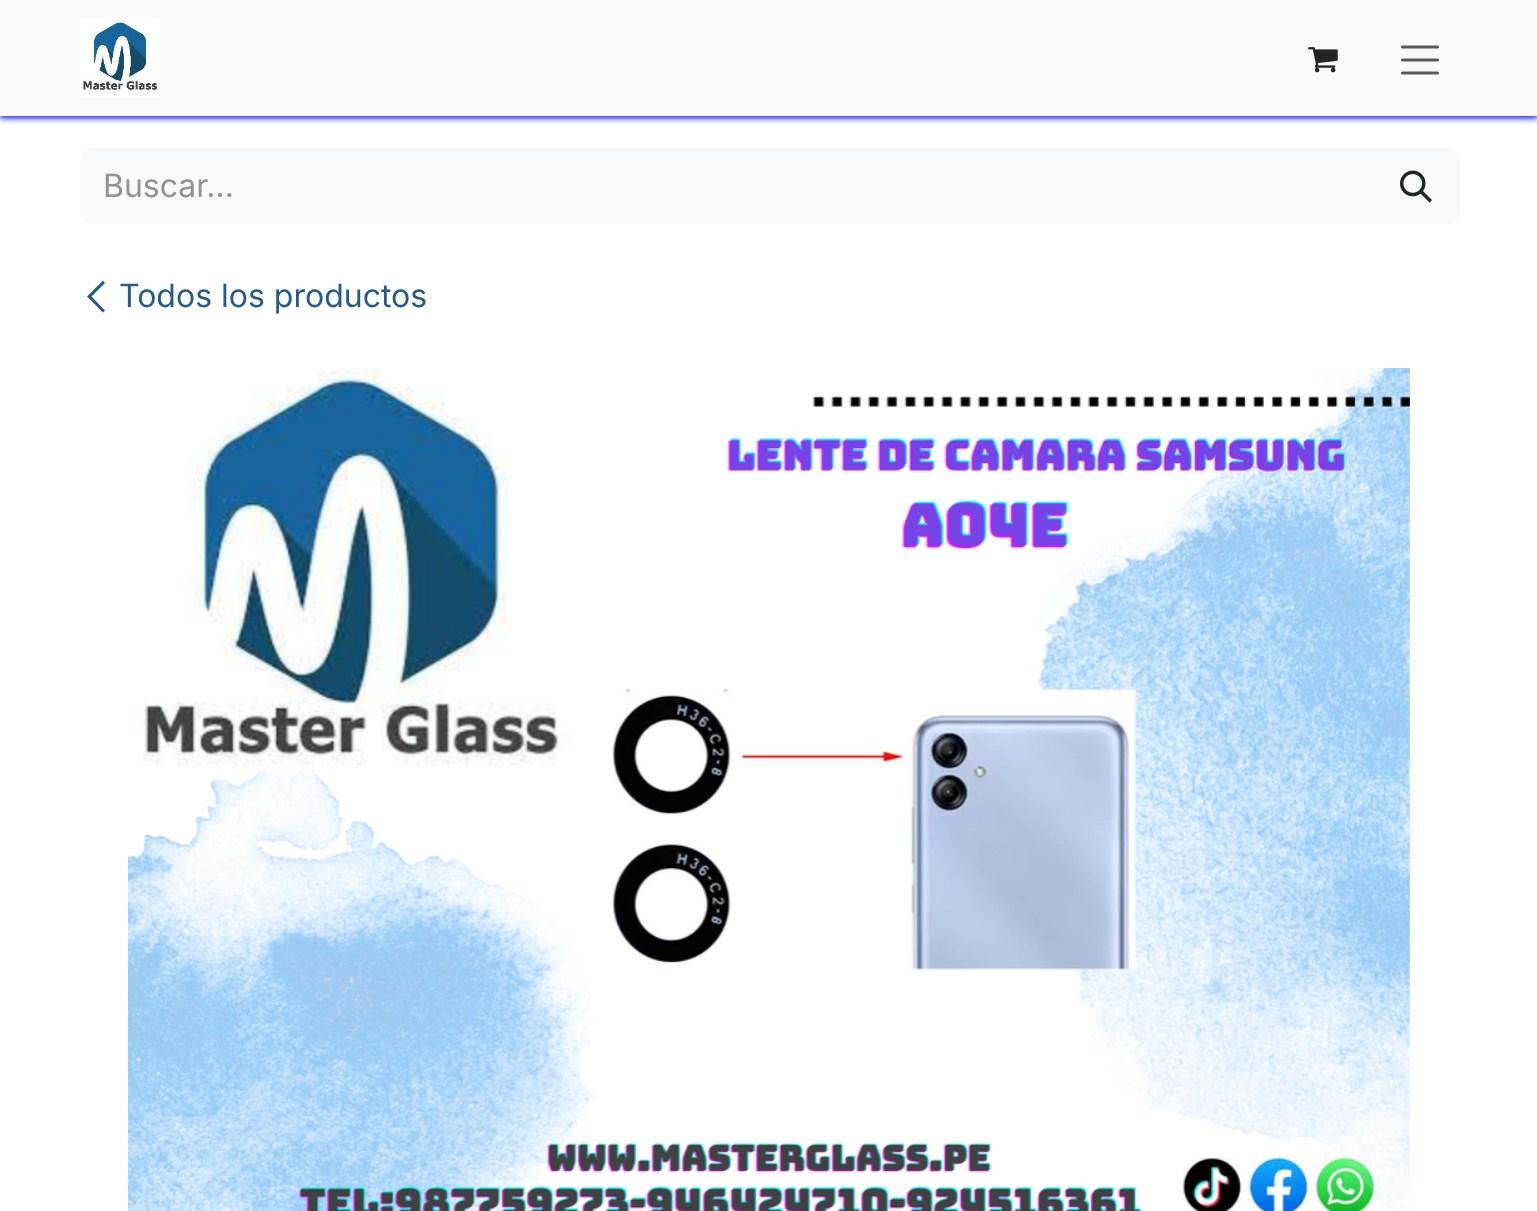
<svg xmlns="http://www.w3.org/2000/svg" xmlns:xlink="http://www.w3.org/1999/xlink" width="1537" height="1211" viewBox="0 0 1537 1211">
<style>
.cls-1{font:32px Inter;fill:#909294}
.cls-2{font:32px Inter;fill:#265a87}
</style>
<rect width="100%" height="100%" fill="#ffffff"/>
<rect fill="#0000ff" filter="blur(3px)" x="0" y="2" width="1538" height="116"/>
<rect fill="#f8f9fa" x="0" y="0" width="1537" height="116"/>
<image xlink:href="image0.png" x="80" y="18" width="80" height="80"/>
<image xlink:href="image1.png" x="1308" y="47" width="30" height="26"/>
<path fill="none" stroke="#575a5d" stroke-width="3.2" stroke-linecap="round" d="M1402.5 47H1437.5M1402.5 60H1437.5M1402.5 73H1437.5"/>
<path fill="#f8f9fa" d="M92 148H1376V224H92C85.5 224 80 218.5 80 212V160C80 153.5 85.5 148 92 148Z"/>
<path fill="#f8f9fa" d="M1374 148H1448C1454.5 148 1460 153.5 1460 160V212C1460 218.5 1454.5 224 1448 224H1374Z"/>
<image xlink:href="image2.png" x="1400" y="170" width="32" height="33"/>
<path fill="#265a87" d="M87 296.5L103 280.5L105 283L91.5 296.5L105 310.5L103 312.5Z"/>
<image xlink:href="image3.png" x="128" y="368" width="1282" height="843"/>
<text class="cls-1" x="103" y="197">Buscar…</text>
<text class="cls-2" x="119" y="307">Todos los productos</text>
</svg>
